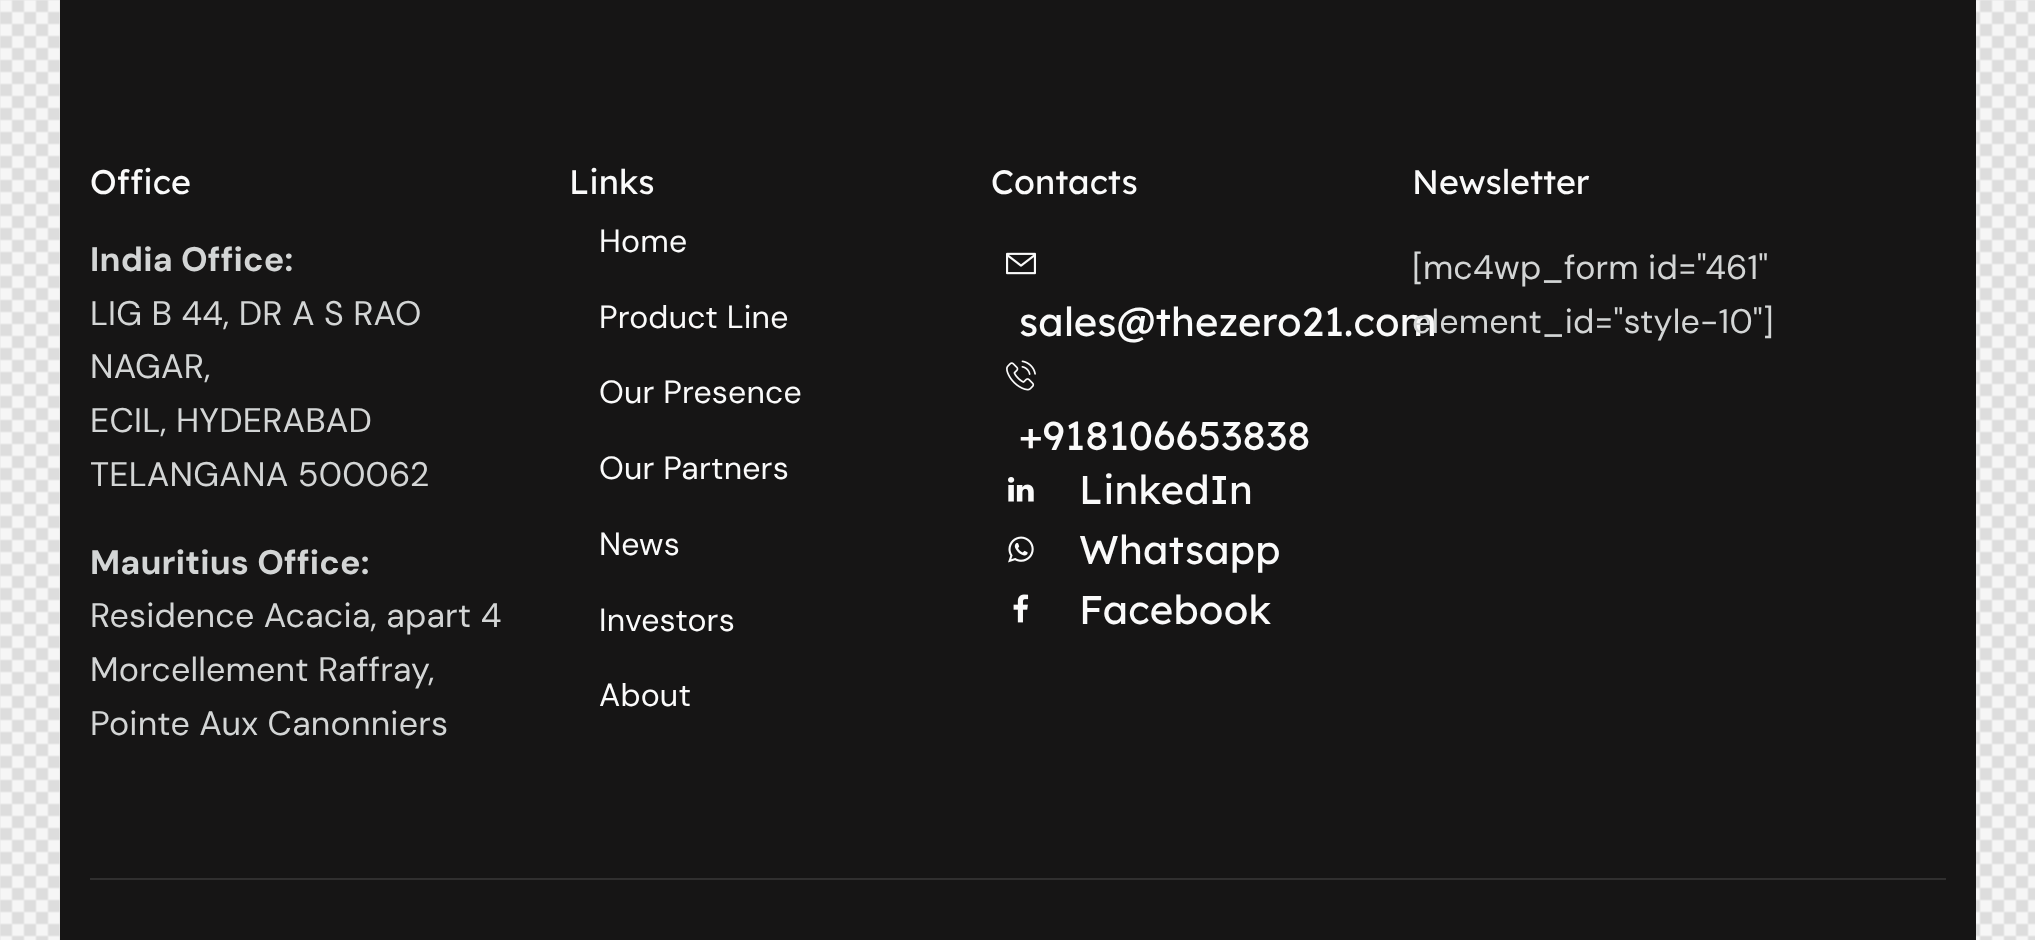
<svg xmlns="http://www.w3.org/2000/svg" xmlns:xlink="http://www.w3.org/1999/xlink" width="2035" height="940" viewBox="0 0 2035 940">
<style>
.cls-1{font:34px Lexend Deca;fill:#fafafa}
.cls-2{font:bold 34px DM Sans;letter-spacing:0.2px;fill:#d3d5d5}
.cls-3{font:34px DM Sans;letter-spacing:0.2px;fill:#d3d5d5}
.cls-4{font:32px DM Sans;letter-spacing:0.2px;fill:#fafafa}
.cls-5{font:40px Lexend Deca;letter-spacing:0.2px;fill:#fafafa}
</style>
<rect width="100%" height="100%" fill="#ffffff"/>
<image xlink:href="image0.png" x="0" y="0" width="2035" height="940"/>
<rect fill="#161515" x="60" y="0" width="1916" height="940"/>
<image xlink:href="image1.png" x="1006" y="252" width="30" height="23"/>
<image xlink:href="image2.png" x="1006" y="360" width="30" height="31"/>
<image xlink:href="image3.png" x="1008" y="477" width="26" height="25"/>
<image xlink:href="image4.png" x="1008" y="536" width="26" height="27"/>
<image xlink:href="image5.png" x="1013" y="594" width="16" height="29"/>
<rect fill="#302f2f" x="90" y="878" width="1856" height="2"/>
<text class="cls-1" x="90" y="194">Office</text>
<text class="cls-2" x="90" y="271">India Office:</text>
<text class="cls-3"><tspan x="90" y="325">LIG B 44, DR A S RAO</tspan><tspan x="90" y="378">NAGAR,</tspan><tspan x="90" y="432">ECIL, HYDERABAD</tspan><tspan x="90" y="486">TELANGANA 500062</tspan></text>
<text class="cls-2" x="90" y="574">Mauritius Office:</text>
<text class="cls-3"><tspan x="90" y="627">Residence Acacia, apart 4</tspan><tspan x="90" y="681">Morcellement Raffray,</tspan><tspan x="90" y="735">Pointe Aux Canonniers</tspan></text>
<text class="cls-1" x="569" y="194">Links</text>
<text class="cls-4" x="599" y="252">Home</text>
<text class="cls-4" x="599" y="328">Product Line</text>
<text class="cls-4" x="599" y="403">Our Presence</text>
<text class="cls-4" x="599" y="479">Our Partners</text>
<text class="cls-4" x="599" y="555">News</text>
<text class="cls-4" x="599" y="631">Investors</text>
<text class="cls-4" x="599" y="706">About</text>
<text class="cls-1" x="991" y="194">Contacts</text>
<text class="cls-5" x="1019" y="336">sales@thezero21.com</text>
<text class="cls-5" x="1019" y="450">+918106653838</text>
<text class="cls-5"><tspan x="1079" y="504">LinkedIn</tspan><tspan x="1079" y="564">Whatsapp</tspan><tspan x="1079" y="624">Facebook</tspan></text>
<text class="cls-1" x="1412" y="194">Newsletter</text>
<text class="cls-3"><tspan x="1412" y="279">[mc4wp_form id="461"</tspan><tspan x="1412" y="333">element_id="style-10"]</tspan></text>
</svg>
